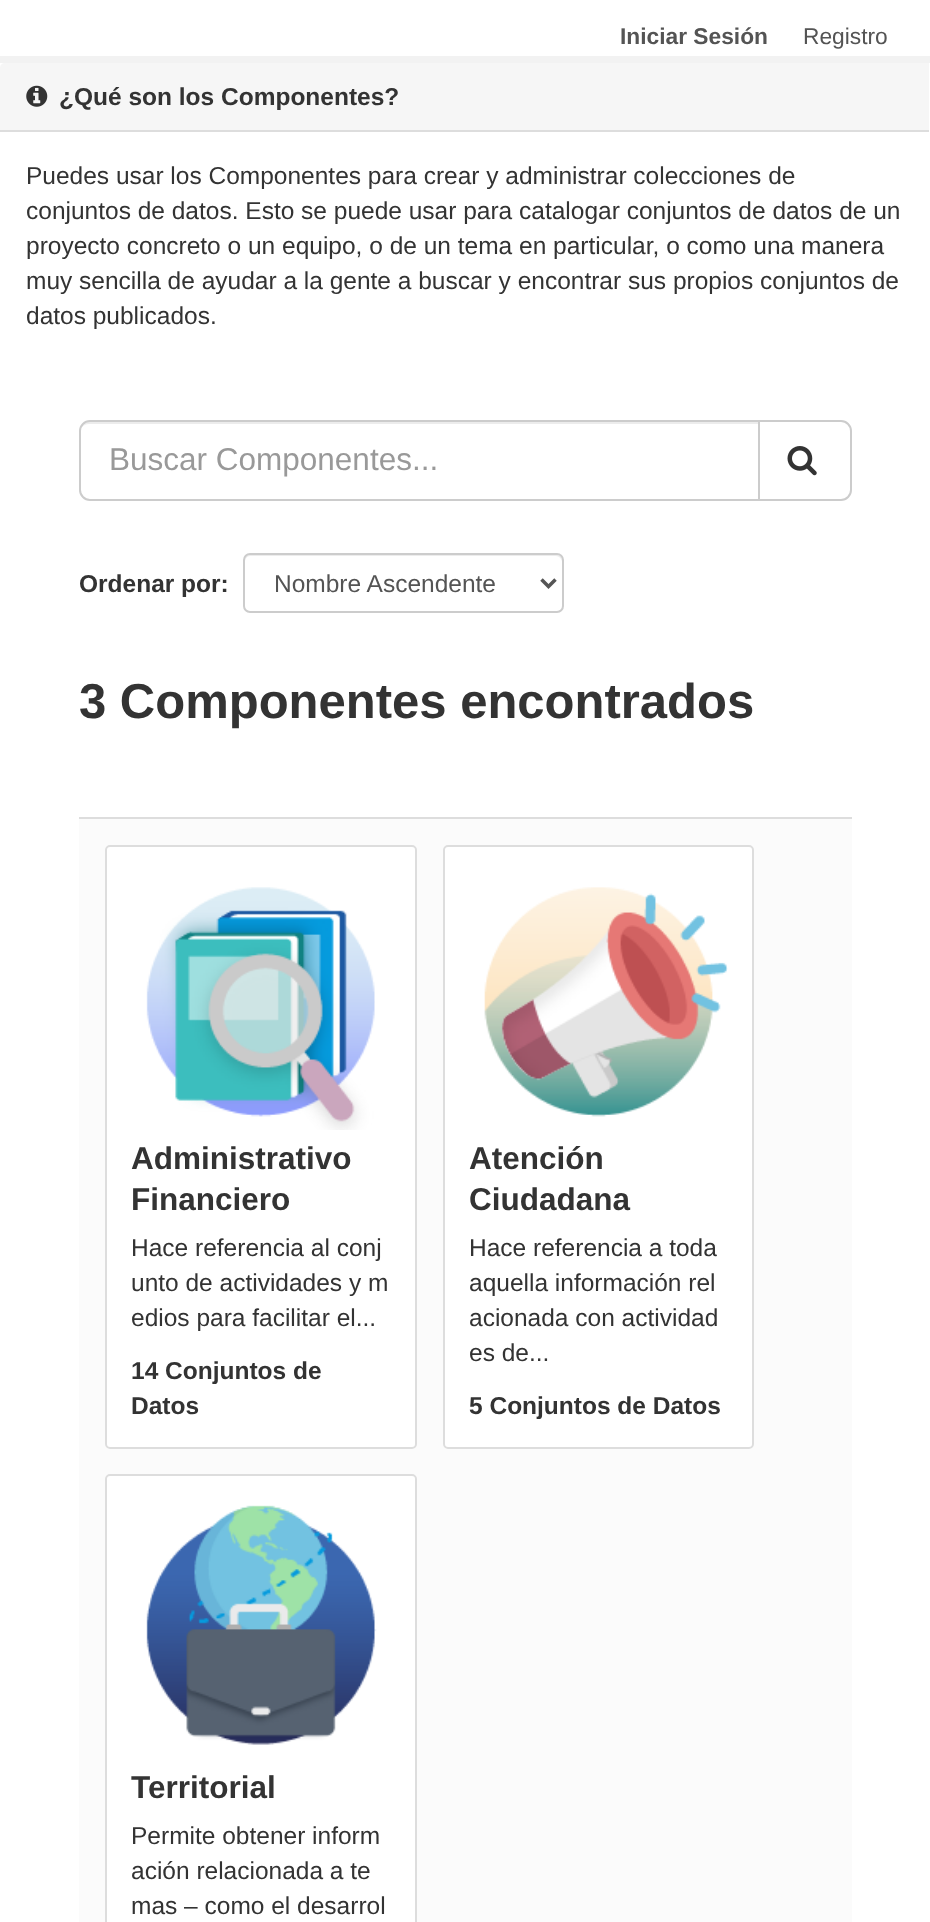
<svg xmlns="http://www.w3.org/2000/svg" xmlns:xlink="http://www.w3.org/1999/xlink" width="930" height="1922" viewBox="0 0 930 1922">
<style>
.cls-1{font:bold 22.75px Liberation Sans;fill:#545454}
.cls-2{font:22.75px Liberation Sans;fill:#545454}
.cls-3{font:bold 24.5px Liberation Sans;fill:#333333}
.cls-4{font:24.5px Liberation Sans;fill:#333333}
.cls-5{font:31.5px Liberation Sans;fill:#999999}
.cls-6{font:24.5px Liberation Sans;fill:#545454}
.cls-7{font:bold 49px Liberation Sans;fill:#333333}
.cls-8{font:bold 31.5px Liberation Sans;fill:#333333}
</style>
<rect width="100%" height="100%" fill="#ffffff"/>
<rect fill="none" stroke="#f2f2f2" stroke-width="7" x="-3.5" y="59.5" width="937" height="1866"/>
<path fill="#f6f6f6" d="M5 63H929V131H0V68C0 65 2 63 5 63Z"/>
<rect fill="#dddddd" x="0" y="130" width="929" height="2"/>
<image xlink:href="image0.png" x="26" y="85" width="22" height="22"/>
<path fill="#ececec" d="M89 424H758V422H90C87 422 84 424 82 427C84 425 86 424 89 424Z"/>
<path fill="none" stroke="#cccccc" stroke-width="2" d="M90 421H759V500H90C84.5 500 80 495.5 80 490V431C80 425.5 84.5 421 90 421Z"/>
<path fill="#ffffff" stroke="#cccccc" stroke-width="2" d="M759 421H841C846.5 421 851 425.5 851 431V490C851 495.5 846.5 500 841 500H759Z"/>
<image xlink:href="image1.png" x="787" y="446" width="30" height="30"/>
<path fill="#ececec" d="M250 556H556C559 556 562 559 562 562V560C562 557 560 555 557 555H250C247 555 245 557 245 560V562C245 559 247 556 250 556Z"/>
<rect fill="none" stroke="#cccccc" stroke-width="2" x="244" y="554" width="319" height="58" rx="6"/>
<path fill="none" stroke="#555555" stroke-width="3.5" d="M541.5 579.5L548.5 586.5L555.5 579.5"/>
<rect fill="#fbfbfb" x="79" y="819" width="773" height="1103"/>
<rect fill="#dddddd" x="79" y="817" width="773" height="2"/>
<rect fill="#ffffff" x="105" y="845" width="312" height="604" rx="5"/>
<image xlink:href="image2.png" x="146" y="887" width="229" height="243"/>
<rect fill="none" stroke="#dddddd" stroke-width="2" x="106" y="846" width="310" height="602" rx="4"/>
<rect fill="#ffffff" x="443" y="845" width="311" height="604" rx="5"/>
<image xlink:href="image3.png" x="484" y="887" width="244" height="230"/>
<rect fill="none" stroke="#dddddd" stroke-width="2" x="444" y="846" width="309" height="602" rx="4"/>
<rect fill="#ffffff" x="105" y="1474" width="312" height="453" rx="5"/>
<image xlink:href="image4.png" x="146" y="1505" width="231" height="240"/>
<rect fill="none" stroke="#dddddd" stroke-width="2" x="106" y="1475" width="310" height="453" rx="4"/>
<text class="cls-1" x="620" y="44">Iniciar Sesión</text>
<text class="cls-2" x="803" y="44">Registro</text>
<text class="cls-3" x="59" y="105">¿Qué son los Componentes?</text>
<text class="cls-4"><tspan x="26" y="184">Puedes usar los Componentes para crear y administrar colecciones de</tspan><tspan x="26" y="219">conjuntos de datos. Esto se puede usar para catalogar conjuntos de datos de un</tspan><tspan x="26" y="254">proyecto concreto o un equipo, o de un tema en particular, o como una manera</tspan><tspan x="26" y="289">muy sencilla de ayudar a la gente a buscar y encontrar sus propios conjuntos de</tspan><tspan x="26" y="324">datos publicados.</tspan></text>
<text class="cls-5" x="109" y="470">Buscar Componentes...</text>
<text class="cls-3" x="79" y="592">Ordenar por:</text>
<text class="cls-6" x="274" y="592">Nombre Ascendente</text>
<text class="cls-7" x="79" y="718">3 Componentes encontrados</text>
<text class="cls-8"><tspan x="131" y="1169">Administrativo</tspan><tspan x="131" y="1210">Financiero</tspan></text>
<text class="cls-4"><tspan x="131" y="1256">Hace referencia al conj</tspan><tspan x="131" y="1291">unto de actividades y m</tspan><tspan x="131" y="1326">edios para facilitar el...</tspan></text>
<text class="cls-3"><tspan x="131" y="1379">14 Conjuntos de</tspan><tspan x="131" y="1414">Datos</tspan></text>
<text class="cls-8"><tspan x="469" y="1169">Atención</tspan><tspan x="469" y="1210">Ciudadana</tspan></text>
<text class="cls-4"><tspan x="469" y="1256">Hace referencia a toda</tspan><tspan x="469" y="1291">aquella información rel</tspan><tspan x="469" y="1326">acionada con actividad</tspan><tspan x="469" y="1361">es de...</tspan></text>
<text class="cls-3" x="469" y="1414">5 Conjuntos de Datos</text>
<text class="cls-8" x="131" y="1798">Territorial</text>
<text class="cls-4"><tspan x="131" y="1844">Permite obtener inform</tspan><tspan x="131" y="1879">ación relacionada a te</tspan><tspan x="131" y="1914">mas – como el desarrol</tspan></text>
</svg>
